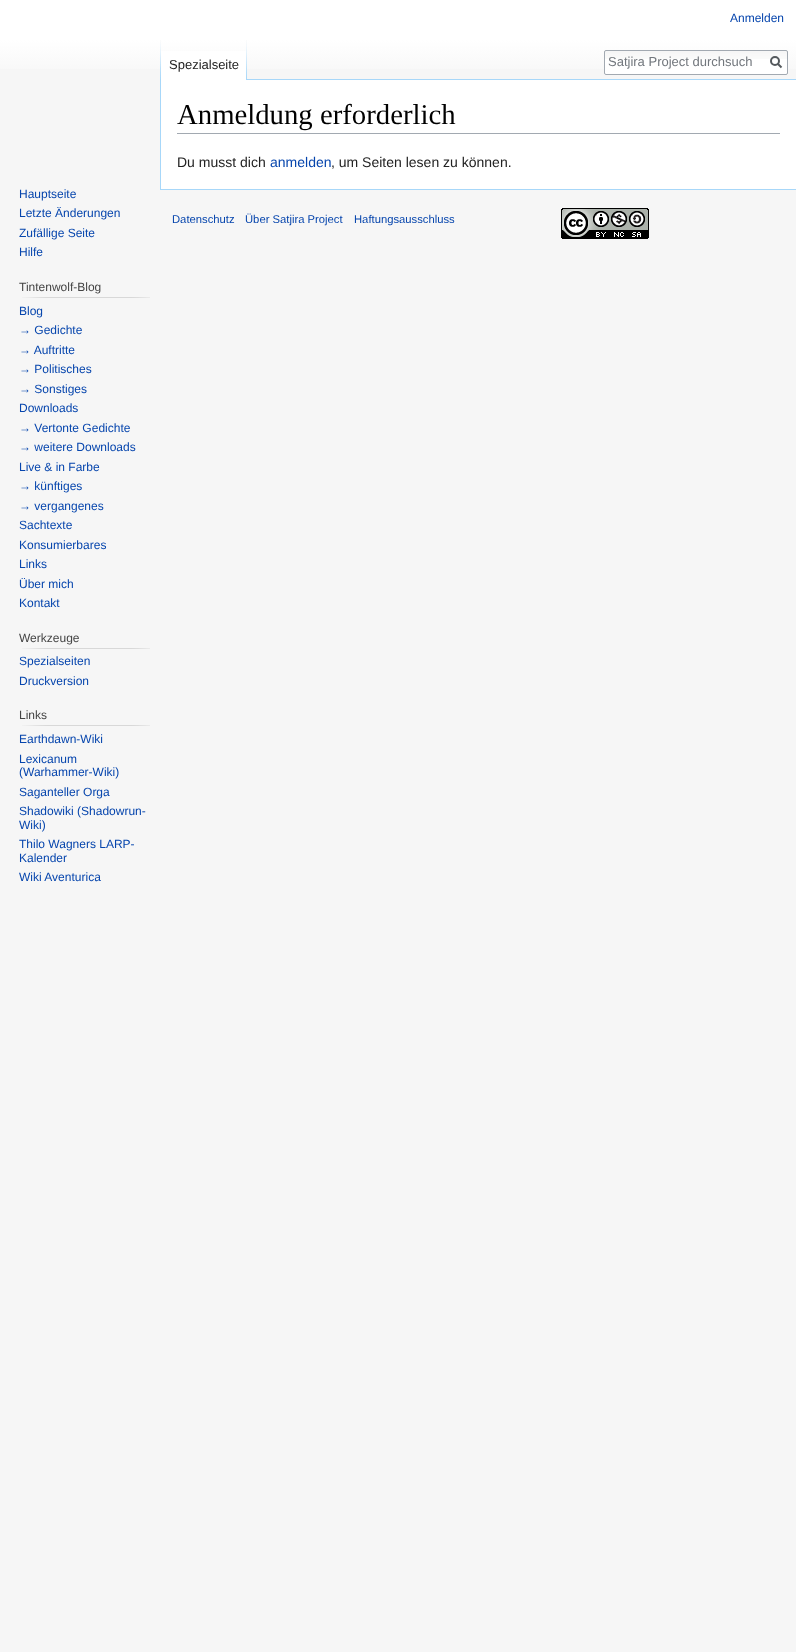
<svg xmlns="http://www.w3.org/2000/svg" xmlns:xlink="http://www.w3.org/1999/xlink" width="796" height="1652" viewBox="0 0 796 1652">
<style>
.cls-1{font:12px Liberation Sans;fill:#0645ad}
.cls-2{font:13px Liberation Sans;fill:#222222}
.cls-3{font:13px Liberation Sans;fill:#72777d}
.cls-4{font:12px Liberation Sans;fill:#444444}
.cls-5{font:28.75px Liberation Serif;fill:#000000}
.cls-6{font:14px Liberation Sans;fill:#222222}
.cls-7{font:14px Liberation Sans;fill:#0645ad}
.cls-8{font:11.25px Liberation Sans;fill:#0645ad}
</style>
<defs>
<linearGradient id="g1" gradientUnits="userSpaceOnUse" x1="398" y1="0" x2="398" y2="80"><stop offset="0.5" stop-color="#ffffff"/><stop offset="1" stop-color="#f6f6f6"/></linearGradient>
</defs>
<rect width="100%" height="100%" fill="#f6f6f6"/>
<rect fill="url(#g1)" x="0" y="0" width="796" height="69"/>
<image xlink:href="image0.png" x="160" y="40" width="1" height="39"/>
<rect fill="#ffffff" x="161" y="51" width="85" height="29"/>
<image xlink:href="image1.png" x="246" y="40" width="1" height="40"/>
<rect fill="#ffffff" x="604" y="50" width="184" height="25" rx="2"/>
<image xlink:href="image2.png" x="604" y="51" width="184" height="8"/>
<rect fill="none" stroke="#a2a9b1" x="604.5" y="50.5" width="183" height="24" rx="1.5"/>
<path fill="none" stroke="#54595d" stroke-width="2" d="M781.5 67.5L777.5 63.5"/>
<circle fill="none" stroke="#54595d" stroke-width="2" cx="775" cy="61" r="4"/>
<image xlink:href="image3.png" x="22" y="297" width="128" height="1"/>
<image xlink:href="image3.png" x="22" y="648" width="128" height="1"/>
<image xlink:href="image3.png" x="22" y="725" width="128" height="1"/>
<rect fill="#ffffff" x="161" y="80" width="635" height="109"/>
<rect fill="#a7d7f9" x="247" y="79" width="549" height="1"/>
<rect fill="#a7d7f9" x="160" y="189" width="636" height="1"/>
<rect fill="#a7d7f9" x="160" y="79" width="1" height="111"/>
<rect fill="#a2a9b1" x="177" y="133" width="603" height="1"/>
<image xlink:href="image4.png" x="561" y="208" width="88" height="31"/>
<text class="cls-1" x="730" y="22">Anmelden</text>
<text class="cls-2" x="169" y="69">Spezialseite</text>
<text class="cls-3" x="608" y="66">Satjira Project durchsuch</text>
<text class="cls-1"><tspan x="19" y="198">Hauptseite</tspan><tspan x="19" y="217">Letzte Änderungen</tspan><tspan x="19" y="237">Zufällige Seite</tspan><tspan x="19" y="256">Hilfe</tspan></text>
<text class="cls-4" x="19" y="291">Tintenwolf-Blog</text>
<text class="cls-1"><tspan x="19" y="315">Blog</tspan><tspan x="19" y="334">→ Gedichte</tspan><tspan x="19" y="354">→ Auftritte</tspan><tspan x="19" y="373">→ Politisches</tspan><tspan x="19" y="393">→ Sonstiges</tspan><tspan x="19" y="412">Downloads</tspan><tspan x="19" y="432">→ Vertonte Gedichte</tspan><tspan x="19" y="451">→ weitere Downloads</tspan><tspan x="19" y="471">Live &amp; in Farbe</tspan><tspan x="19" y="490">→ künftiges</tspan><tspan x="19" y="510">→ vergangenes</tspan><tspan x="19" y="529">Sachtexte</tspan><tspan x="19" y="549">Konsumierbares</tspan><tspan x="19" y="568">Links</tspan><tspan x="19" y="588">Über mich</tspan><tspan x="19" y="607">Kontakt</tspan></text>
<text class="cls-4" x="19" y="642">Werkzeuge</text>
<text class="cls-1"><tspan x="19" y="665">Spezialseiten</tspan><tspan x="19" y="685">Druckversion</tspan></text>
<text class="cls-4" x="19" y="719">Links</text>
<text class="cls-1"><tspan x="19" y="743">Earthdawn-Wiki</tspan><tspan x="19" y="763">Lexicanum</tspan><tspan x="19" y="776">(Warhammer-Wiki)</tspan><tspan x="19" y="796">Saganteller Orga</tspan><tspan x="19" y="815">Shadowiki (Shadowrun-</tspan><tspan x="19" y="829">Wiki)</tspan><tspan x="19" y="848">Thilo Wagners LARP-</tspan><tspan x="19" y="862">Kalender</tspan><tspan x="19" y="881">Wiki Aventurica</tspan></text>
<text class="cls-5" x="177" y="124">Anmeldung erforderlich</text>
<text class="cls-6" x="177" y="167">Du musst dich</text>
<text class="cls-7" x="270" y="167">anmelden</text>
<text class="cls-6" x="331" y="167">, um Seiten lesen zu können.</text>
<text class="cls-8" x="172" y="223">Datenschutz</text>
<text class="cls-8" x="245" y="223">Über Satjira Project</text>
<text class="cls-8" x="354" y="223">Haftungsausschluss</text>
</svg>
